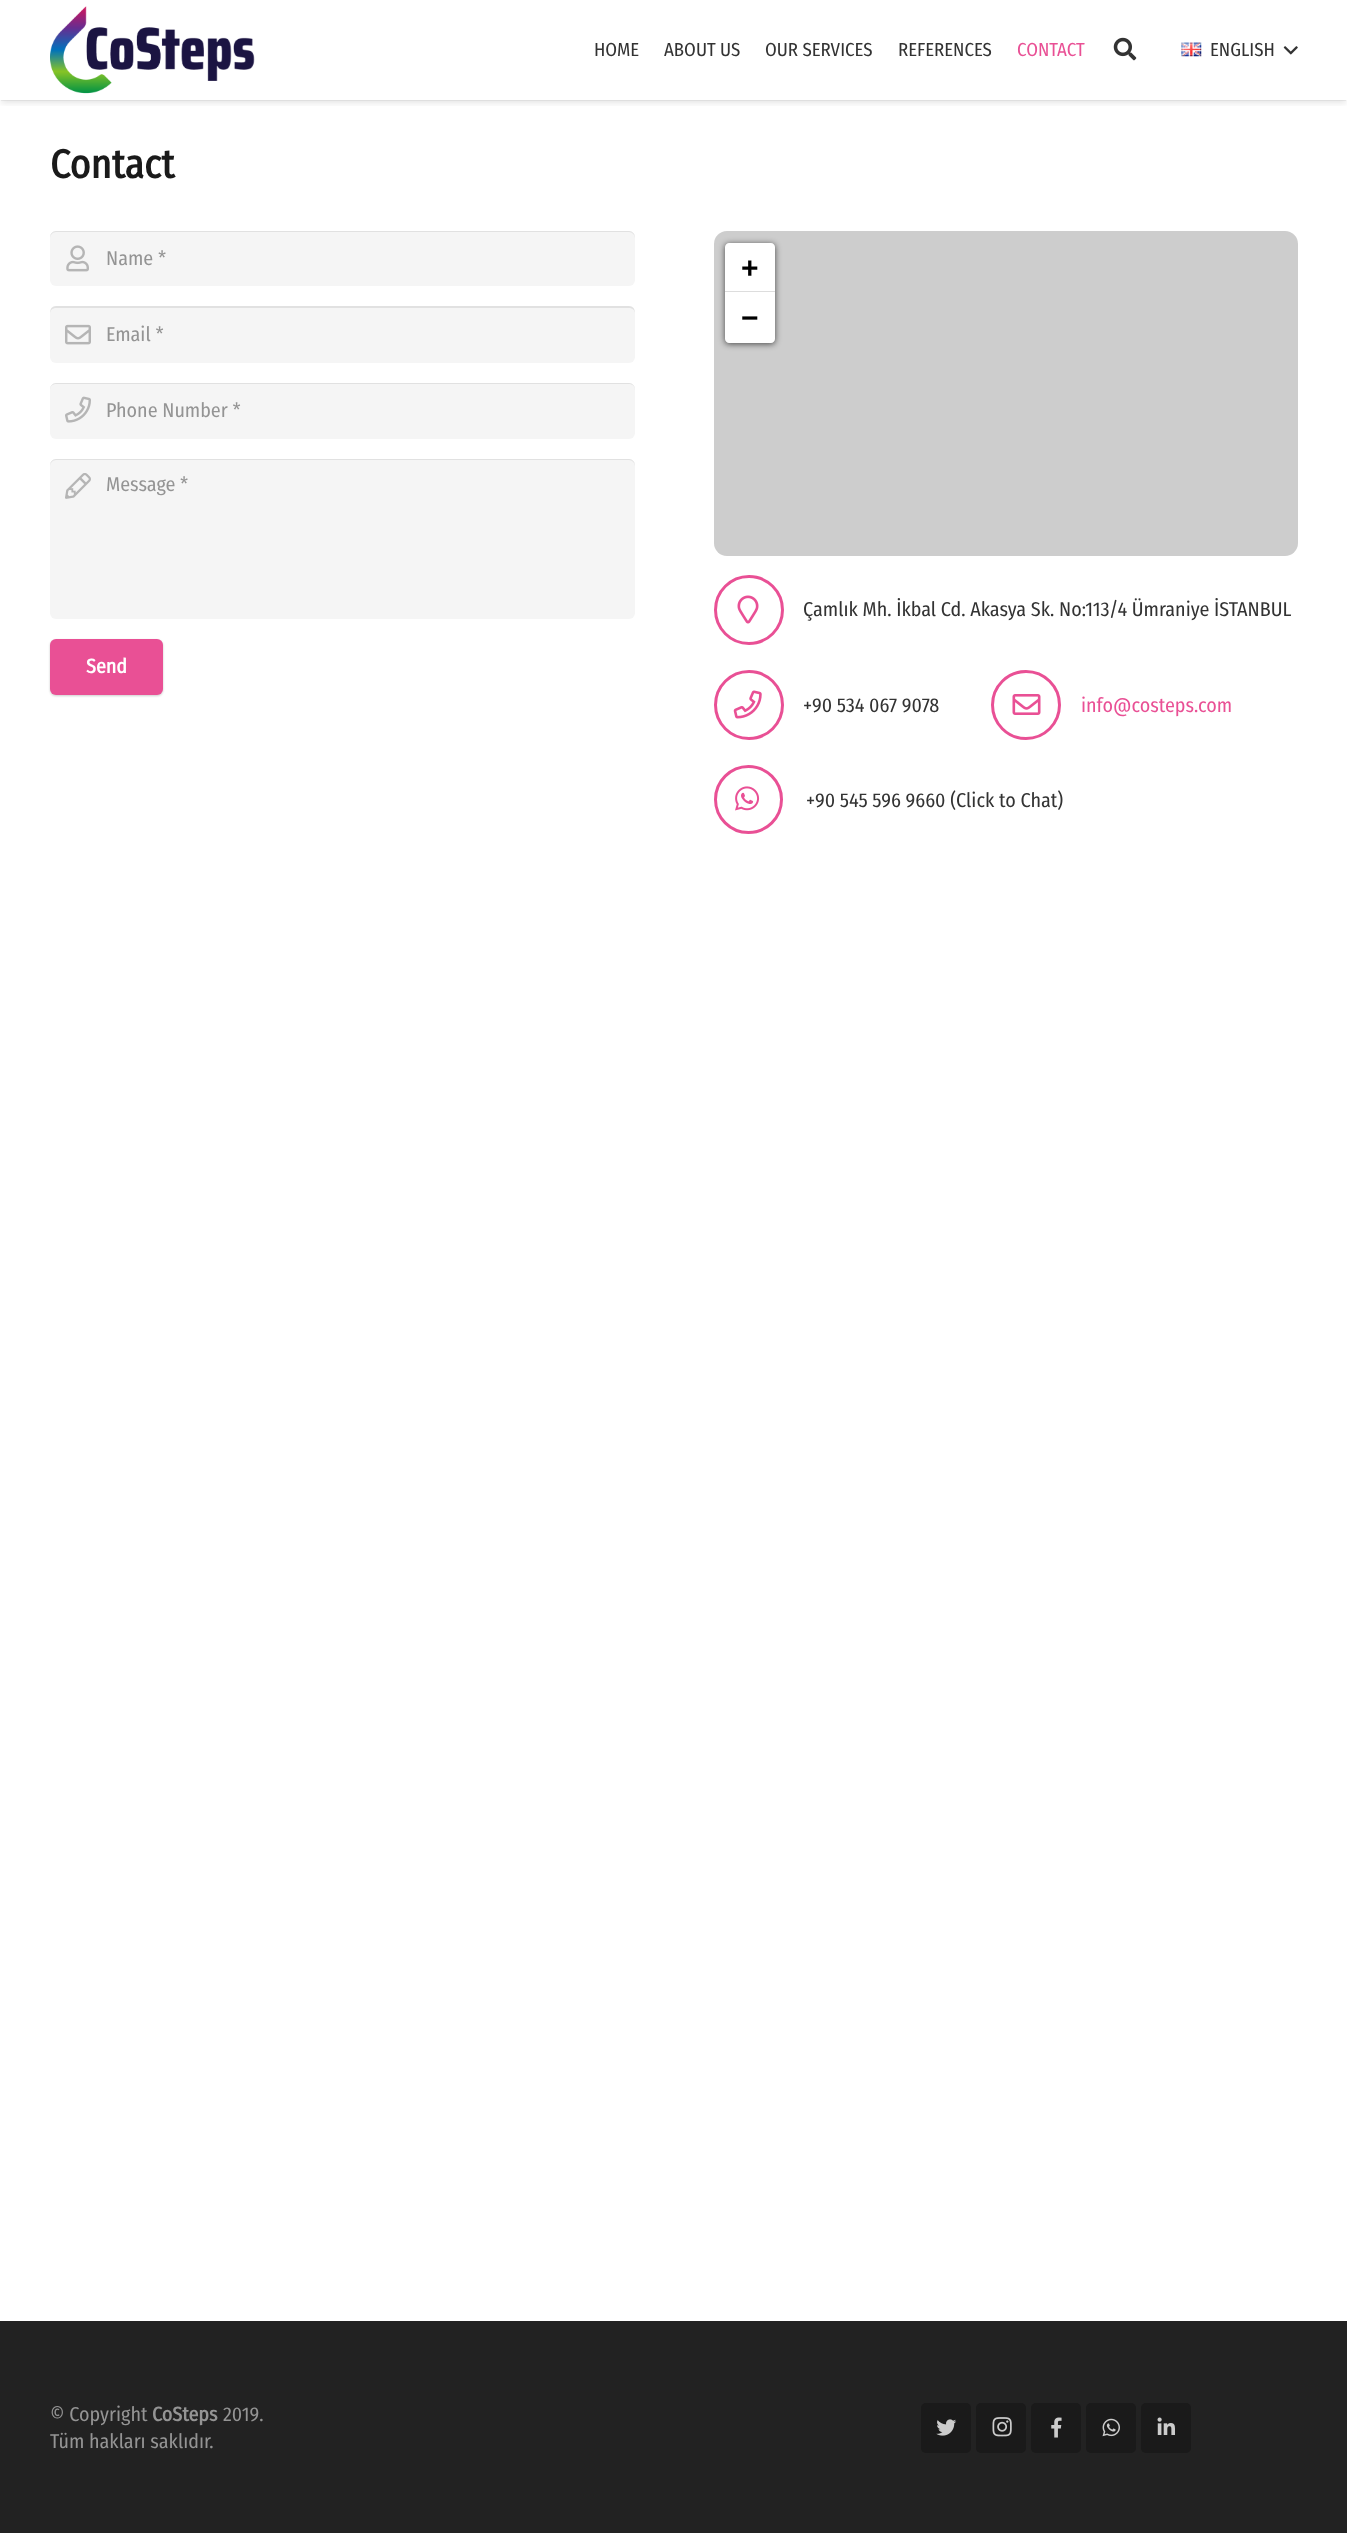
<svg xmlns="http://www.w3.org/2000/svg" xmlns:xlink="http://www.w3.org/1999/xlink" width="1347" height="2533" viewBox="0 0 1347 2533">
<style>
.cls-1{font:18.75px Fira Sans Condensed;fill:#333333}
.cls-2{font:18.75px Fira Sans Condensed;fill:#e95095}
.cls-3{font:bold 40px Fira Sans Condensed;fill:#1a1a1a}
.cls-4{font:20px Fira Sans Condensed;fill:#949494}
.cls-5{font:bold 20px Fira Sans Condensed;fill:#ffffff}
.cls-6{font:bold 30px Liberation Sans;fill:#000000}
.cls-7{font:20px Fira Sans Condensed;fill:#333333}
.cls-8{font:20px Fira Sans Condensed;fill:#e95095}
.cls-9{font:bold 20px Fira Sans Condensed;fill:#949494}
</style>
<defs>
<clipPath id="clip1"><rect x="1" y="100" width="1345" height="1"/></clipPath>
<clipPath id="clip2"><rect x="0" y="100" width="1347" height="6"/></clipPath>
</defs>
<rect width="100%" height="100%" fill="#ffffff"/>
<g clip-path="url(#clip1)">
<rect fill="#000000" fill-opacity="0.05" filter="blur(0.5px)" x="1" y="4" width="1345" height="97"/>
</g>
<g clip-path="url(#clip2)">
<rect fill="#000000" fill-opacity="0.1" filter="blur(3px)" x="1" y="5" width="1345" height="98"/>
</g>
<image xlink:href="image0.png" x="50" y="6" width="205" height="88"/>
<image xlink:href="image1.png" x="1113" y="37" width="24" height="24"/>
<image xlink:href="image2.png" x="1181" y="42" width="21" height="15"/>
<image xlink:href="image3.png" x="1283" y="46" width="15" height="9"/>
<rect fill="#f5f5f5" x="50" y="231" width="585" height="55" rx="6"/>
<image xlink:href="image4.png" x="66" y="245" width="23" height="27"/>
<path fill="#e1e1e1" d="M56 232H629C632 232 635 235 635 238V237C635 234 632 231 629 231H56C53 231 50 234 50 237V238C50 235 53 232 56 232Z"/>
<rect fill="#f5f5f5" x="50" y="306" width="585" height="57" rx="6"/>
<image xlink:href="image5.png" x="65" y="324" width="26" height="21"/>
<path fill="#000000" fill-opacity="0.08" d="M56 308H629C632 308 635 310 635 314C635 310 634 306 629 306H56C51 306 50 310 50 314C50 310 53 308 56 308Z"/>
<rect fill="#f5f5f5" x="50" y="383" width="585" height="56" rx="6"/>
<image xlink:href="image6.png" x="65" y="396" width="26" height="27"/>
<path fill="#e1e1e1" d="M56 384H629C632 384 635 386 635 390V389C635 386 632 383 629 383H56C53 383 50 386 50 389V390C50 386 53 384 56 384Z"/>
<rect fill="#f5f5f5" x="50" y="459" width="585" height="160" rx="6"/>
<image xlink:href="image7.png" x="65" y="473" width="26" height="26"/>
<path fill="#e1e1e1" d="M56 460H629C632 460 635 463 635 466V465C635 462 632 459 629 459H56C53 459 50 462 50 465V466C50 463 53 460 56 460Z"/>
<rect fill="#000000" fill-opacity="0.2" filter="blur(1px)" x="50" y="640" width="113" height="56" rx="6"/>
<rect fill="#e95095" x="50" y="639" width="113" height="56" rx="6"/>
<rect fill="#cdcdcd" x="714" y="231" width="584" height="325" rx="13"/>
<rect fill="#000000" fill-opacity="0.65" filter="blur(3px)" x="725" y="244" width="50" height="100" rx="4"/>
<path fill="#ffffff" d="M729 243H771C773 243 775 245 775 247V293H725V247C725 245 727 243 729 243Z"/>
<rect fill="#dddddd" x="725" y="291" width="50" height="1"/>
<path fill="#ffffff" d="M725 293H775V339C775 341 773 343 771 343H729C727 343 725 341 725 339Z"/>
<circle fill="none" stroke="#e95095" stroke-width="3" cx="749" cy="610" r="33.5"/>
<image xlink:href="image8.png" x="737" y="595" width="22" height="29"/>
<circle fill="none" stroke="#e95095" stroke-width="3" cx="749" cy="705" r="33.5"/>
<image xlink:href="image9.png" x="733" y="690" width="29" height="29"/>
<circle fill="none" stroke="#e95095" stroke-width="3" cx="1026" cy="705" r="33.5"/>
<image xlink:href="image10.png" x="1012" y="694" width="29" height="21"/>
<circle fill="none" stroke="#e95095" stroke-width="3" cx="748.5" cy="799.5" r="33"/>
<image xlink:href="image11.png" x="735" y="786" width="25" height="25"/>
<rect fill="#222222" x="0" y="2321" width="1347" height="212"/>
<rect fill="#1a1a1a" x="921" y="2403" width="50" height="50" rx="5"/>
<image xlink:href="image12.png" x="936" y="2419" width="21" height="17"/>
<rect fill="#1a1a1a" x="976" y="2403" width="50" height="50" rx="5"/>
<image xlink:href="image13.png" x="992" y="2417" width="20" height="20"/>
<rect fill="#1a1a1a" x="1031" y="2403" width="50" height="50" rx="5"/>
<image xlink:href="image14.png" x="1051" y="2417" width="11" height="21"/>
<rect fill="#1a1a1a" x="1086" y="2403" width="50" height="50" rx="5"/>
<image xlink:href="image15.png" x="1102" y="2418" width="18" height="19"/>
<rect fill="#1a1a1a" x="1141" y="2403" width="50" height="50" rx="5"/>
<image xlink:href="image16.png" x="1157" y="2417" width="18" height="18"/>
<text class="cls-1" x="594" y="56">HOME</text>
<text class="cls-1" x="664" y="56">ABOUT US</text>
<text class="cls-1" x="765" y="56">OUR SERVICES</text>
<text class="cls-1" x="898" y="56">REFERENCES</text>
<text class="cls-2" x="1017" y="56">CONTACT</text>
<text class="cls-1" x="1210" y="56">ENGLISH</text>
<text class="cls-3" x="50" y="178">Contact</text>
<text class="cls-4" x="106" y="265">Name *</text>
<text class="cls-4" x="106" y="341">Email *</text>
<text class="cls-4" x="106" y="417">Phone Number *</text>
<text class="cls-4" x="106" y="491">Message *</text>
<text class="cls-5" x="86" y="673">Send</text>
<text class="cls-6"><tspan x="741" y="278">+</tspan><tspan x="741" y="328">−</tspan></text>
<text class="cls-7" x="803" y="616">Çamlık Mh. İkbal Cd. Akasya Sk. No:113/4 Ümraniye İSTANBUL</text>
<text class="cls-7" x="803" y="712">+90 534 067 9078</text>
<text class="cls-8" x="1081" y="712">info@costeps.com</text>
<text class="cls-7" x="806" y="807">+90 545 596 9660 (Click to Chat)</text>
<text class="cls-4" x="50" y="2421">© Copyright</text>
<text class="cls-9" x="152" y="2421">CoSteps</text>
<text class="cls-4" x="223" y="2421">2019.</text>
<text class="cls-4" x="50" y="2448">Tüm hakları saklıdır.</text>
</svg>
